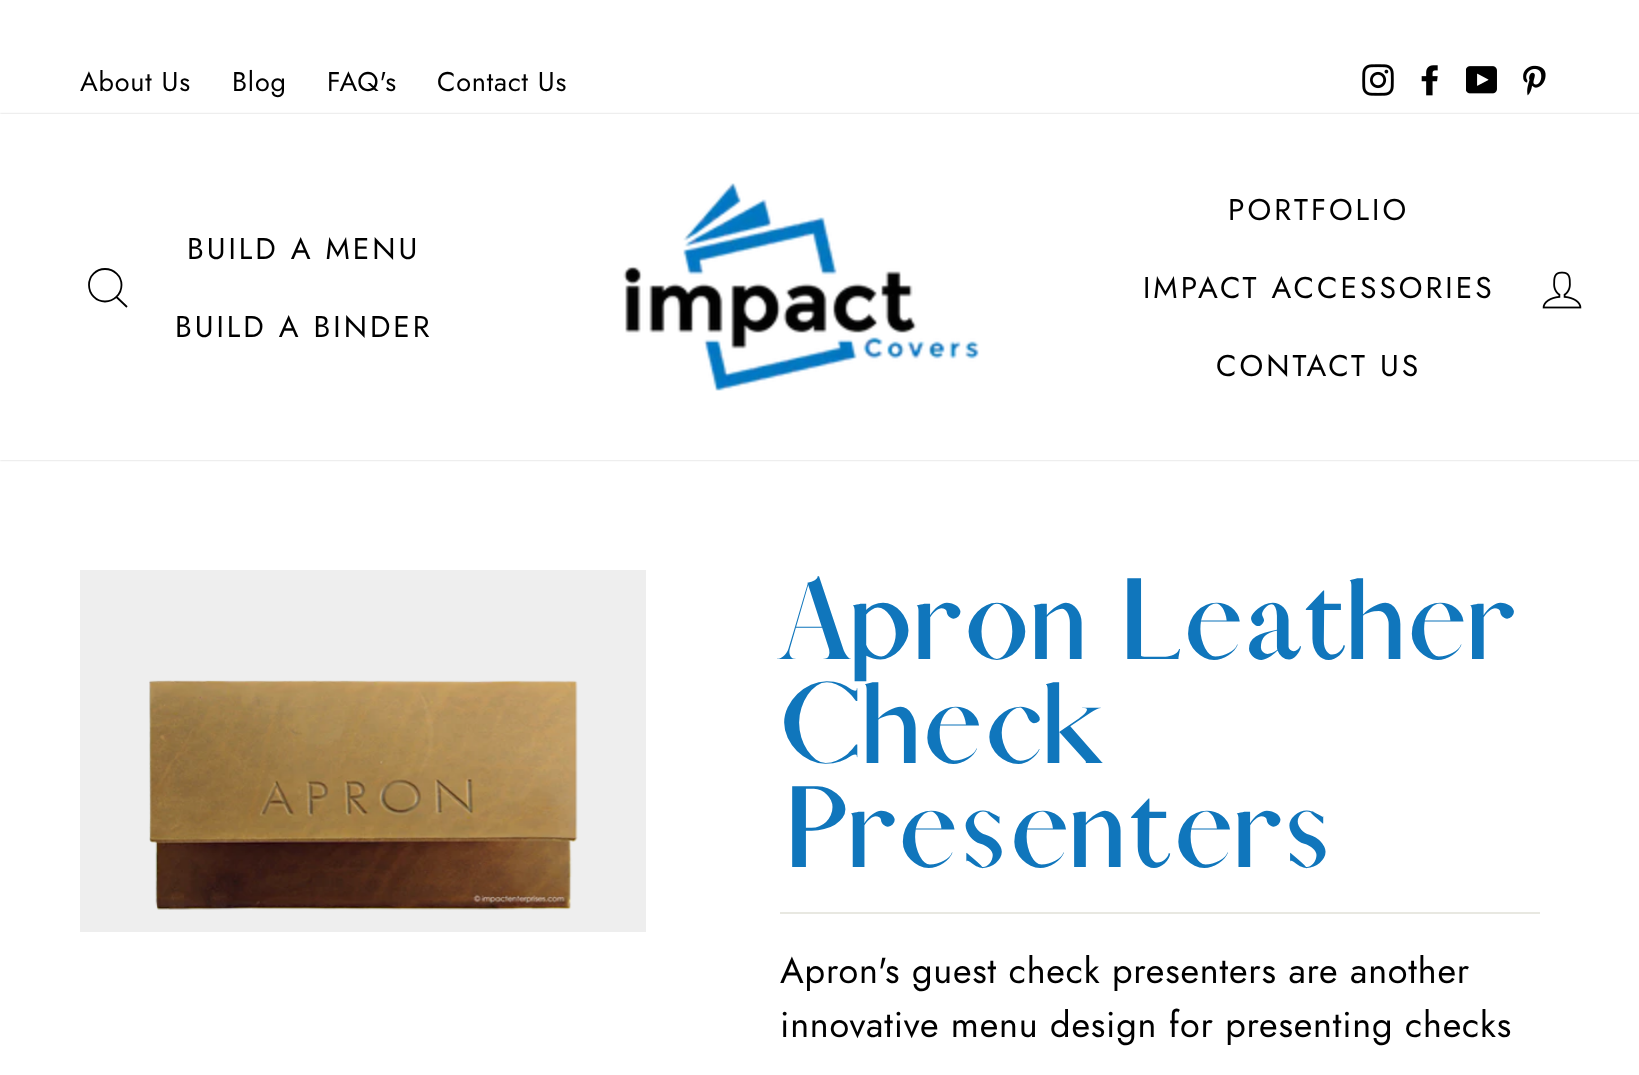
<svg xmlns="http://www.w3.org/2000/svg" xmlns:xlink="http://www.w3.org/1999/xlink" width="1639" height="1075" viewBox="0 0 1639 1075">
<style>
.cls-1{font:27px Jost;letter-spacing:0.8px;fill:#000000}
.cls-2{font:30px Jost;letter-spacing:3px;fill:#000000}
.cls-3{font:bold 104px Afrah;letter-spacing:2.6px;fill:#1076bc}
.cls-4{font:36px Jost;letter-spacing:0.8px;fill:#000000}
</style>
<defs>
<clipPath id="clip1"><path d="M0 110H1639V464H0ZM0 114H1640V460H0Z" clip-rule="evenodd"/></clipPath>
</defs>
<rect width="100%" height="100%" fill="#ffffff"/>
<image xlink:href="image0.png" x="1362" y="64" width="32" height="32"/>
<image xlink:href="image1.png" x="1421" y="65" width="17" height="31"/>
<image xlink:href="image2.png" x="1466" y="66" width="31" height="28"/>
<image xlink:href="image3.png" x="1523" y="65" width="23" height="31"/>
<g clip-path="url(#clip1)">
<rect fill="#000000" fill-opacity="0.2" filter="blur(1px)" x="0" y="114" width="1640" height="346"/>
</g>
<path fill="none" stroke="#000000" stroke-width="1.8" d="M121.5 285C121.5 294 114 301.5 105 301.5C96 301.5 89 294 89 285C89 276 96 269 105 269C114 269 121.5 276 121.5 285ZM127 307L116.5 297"/>
<image xlink:href="image4.png" x="623" y="183" width="356" height="208"/>
<image xlink:href="image5.png" x="1542" y="271" width="40" height="38"/>
<rect fill="#eeeeee" x="80" y="570" width="566" height="362"/>
<image xlink:href="image6.png" x="149" y="680" width="429" height="230"/>
<rect fill="#e8e8e1" x="780" y="912" width="760" height="2"/>
<text class="cls-1" x="80" y="91">About Us</text>
<text class="cls-1" x="232" y="91">Blog</text>
<text class="cls-1" x="327" y="91">FAQ's</text>
<text class="cls-1" x="437" y="91">Contact Us</text>
<text class="cls-2" x="187" y="259">BUILD A MENU</text>
<text class="cls-2" x="175" y="337">BUILD A BINDER</text>
<text class="cls-2" x="1228" y="220">PORTFOLIO</text>
<text class="cls-2" x="1143" y="298">IMPACT ACCESSORIES</text>
<text class="cls-2" x="1216" y="376">CONTACT US</text>
<text class="cls-3"><tspan x="780" y="659">Apron Leather</tspan><tspan x="780" y="763">Check</tspan><tspan x="780" y="867">Presenters</tspan></text>
<text class="cls-4"><tspan x="780" y="983">Apron's guest check presenters are another</tspan><tspan x="780" y="1037">innovative menu design for presenting checks</tspan></text>
</svg>
